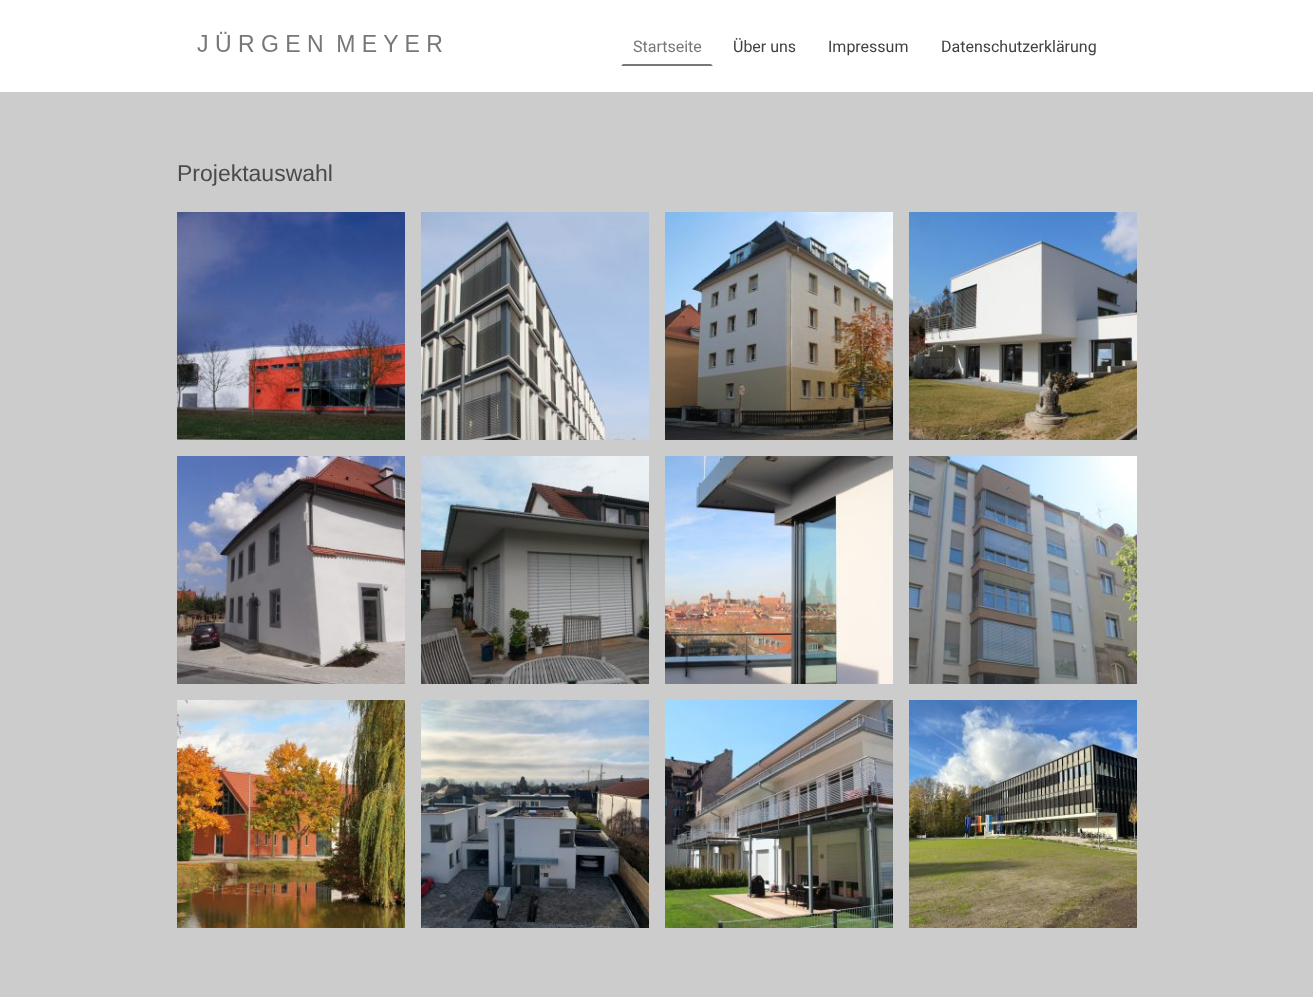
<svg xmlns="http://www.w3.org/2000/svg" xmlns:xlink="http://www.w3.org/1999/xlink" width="1313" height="997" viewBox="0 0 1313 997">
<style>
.cls-1{font:16px Roboto;fill:#777777}
.cls-2{font:16px Roboto;fill:#414141}
.cls-3{font:23px Liberation Sans;fill:#4b4b4b}
</style>
<rect width="100%" height="100%" fill="#ffffff"/>
<image xlink:href="image0.png" x="197" y="31" width="245" height="21"/>
<path fill="#777777" d="M713 66H621L623 64H711Z"/>
<rect fill="#cccccc" x="0" y="92" width="1313" height="905"/>
<image xlink:href="image1.png" x="177" y="212" width="228" height="228"/>
<image xlink:href="image2.png" x="421" y="212" width="228" height="228"/>
<image xlink:href="image3.png" x="665" y="212" width="228" height="228"/>
<image xlink:href="image4.png" x="909" y="212" width="228" height="228"/>
<image xlink:href="image5.png" x="177" y="456" width="228" height="228"/>
<image xlink:href="image6.png" x="421" y="456" width="228" height="228"/>
<image xlink:href="image7.png" x="665" y="456" width="228" height="228"/>
<image xlink:href="image8.png" x="909" y="456" width="228" height="228"/>
<image xlink:href="image9.png" x="177" y="700" width="228" height="228"/>
<image xlink:href="image10.png" x="421" y="700" width="228" height="228"/>
<image xlink:href="image11.png" x="665" y="700" width="228" height="228"/>
<image xlink:href="image12.png" x="909" y="700" width="228" height="228"/>
<text class="cls-1" x="633" y="52">Startseite</text>
<text class="cls-2" x="733" y="52">Über uns</text>
<text class="cls-2" x="828" y="52">Impressum</text>
<text class="cls-2" x="941" y="52">Datenschutzerklärung</text>
<text class="cls-3" x="177" y="181">Projektauswahl</text>
</svg>
